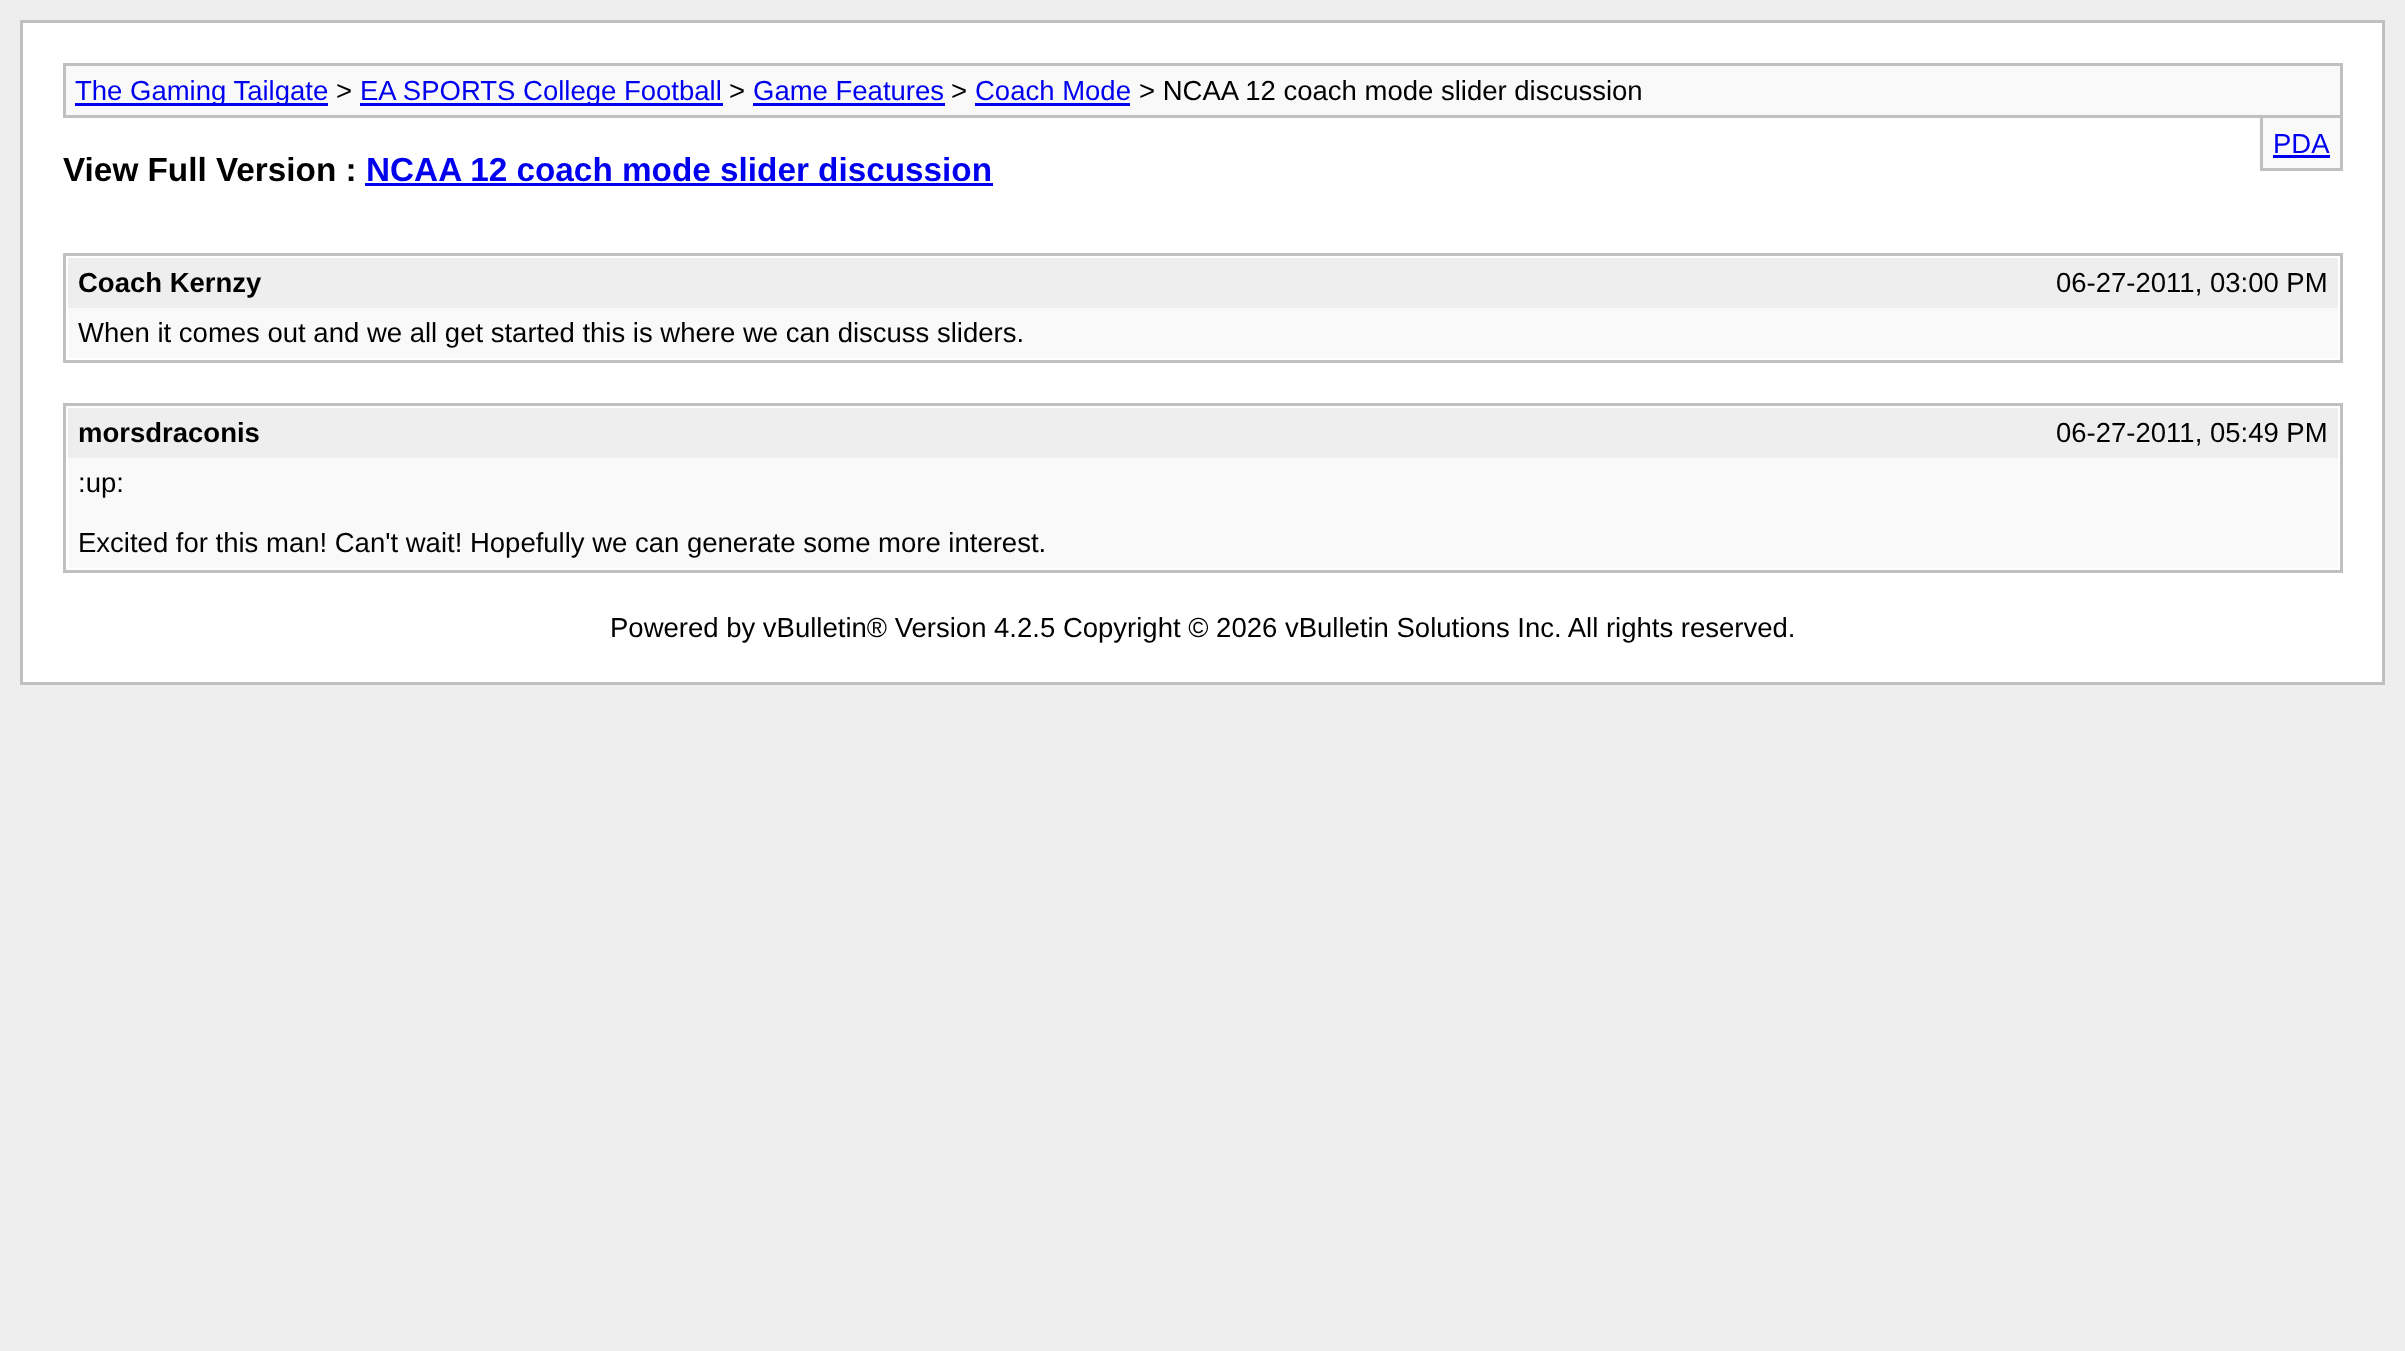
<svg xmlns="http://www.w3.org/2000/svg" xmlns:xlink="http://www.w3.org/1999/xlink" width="2405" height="1351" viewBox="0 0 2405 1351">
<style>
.cls-1{font:27.5px Liberation Sans;fill:#0000ee}
.cls-2{font:27.5px Liberation Sans;fill:#000000}
.cls-3{font:bold 33.3px Liberation Sans;fill:#000000}
.cls-4{font:bold 33.3px Liberation Sans;fill:#0000ee}
.cls-5{font:bold 27.5px Liberation Sans;fill:#000000}
</style>
<rect width="100%" height="100%" fill="#eeeeee"/>
<rect fill="#ffffff" stroke="#c0c0c0" stroke-width="3" x="21.5" y="21.5" width="2362" height="662"/>
<rect fill="#f9f9f9" stroke="#c0c0c0" stroke-width="3" x="64.5" y="64.5" width="2277" height="52"/>
<rect fill="#0000ee" x="75" y="103" width="253" height="3"/>
<rect fill="#0000ee" x="360" y="103" width="363" height="3"/>
<rect fill="#0000ee" x="753" y="103" width="192" height="3"/>
<rect fill="#0000ee" x="975" y="103" width="155" height="3"/>
<rect fill="#f9f9f9" x="2263" y="118" width="77" height="50"/>
<rect fill="#c0c0c0" x="2340" y="118" width="3" height="52"/>
<rect fill="#c0c0c0" x="2260" y="168" width="83" height="3"/>
<rect fill="#c0c0c0" x="2260" y="118" width="3" height="52"/>
<rect fill="#0000ee" x="2273" y="155" width="57" height="3"/>
<rect fill="#0000ee" x="365" y="183" width="628" height="3"/>
<rect fill="none" stroke="#c0c0c0" stroke-width="3" x="64.5" y="254.5" width="2277" height="107"/>
<rect fill="#eeeeee" x="68" y="258" width="2270" height="50"/>
<rect fill="#f9f9f9" x="68" y="308" width="2270" height="50"/>
<rect fill="none" stroke="#c0c0c0" stroke-width="3" x="64.5" y="404.5" width="2277" height="167"/>
<rect fill="#eeeeee" x="68" y="408" width="2270" height="50"/>
<rect fill="#f9f9f9" x="68" y="458" width="2270" height="110"/>
<text class="cls-1" x="75" y="100">The Gaming Tailgate</text>
<text class="cls-2" x="336" y="100">&gt;</text>
<text class="cls-1" x="360" y="100">EA SPORTS College Football</text>
<text class="cls-2" x="729" y="100">&gt;</text>
<text class="cls-1" x="753" y="100">Game Features</text>
<text class="cls-2" x="951" y="100">&gt;</text>
<text class="cls-1" x="975" y="100">Coach Mode</text>
<text class="cls-2" x="1139" y="100">&gt; NCAA 12 coach mode slider discussion</text>
<text class="cls-1" x="2273" y="153">PDA</text>
<text class="cls-3" x="63" y="181">View Full Version :</text>
<text class="cls-4" x="366" y="181">NCAA 12 coach mode slider discussion</text>
<text class="cls-5" x="78" y="292">Coach Kernzy</text>
<text class="cls-2" x="2056" y="292">06-27-2011, 03:00 PM</text>
<text class="cls-2" x="78" y="342">When it comes out and we all get started this is where we can discuss sliders.</text>
<text class="cls-5" x="78" y="442">morsdraconis</text>
<text class="cls-2" x="2056" y="442">06-27-2011, 05:49 PM</text>
<text class="cls-2" x="78" y="492">:up:</text>
<text class="cls-2" x="78" y="552">Excited for this man! Can't wait! Hopefully we can generate some more interest.</text>
<text class="cls-2" x="610" y="637">Powered by vBulletin® Version 4.2.5 Copyright © 2026 vBulletin Solutions Inc. All rights reserved.</text>
</svg>
